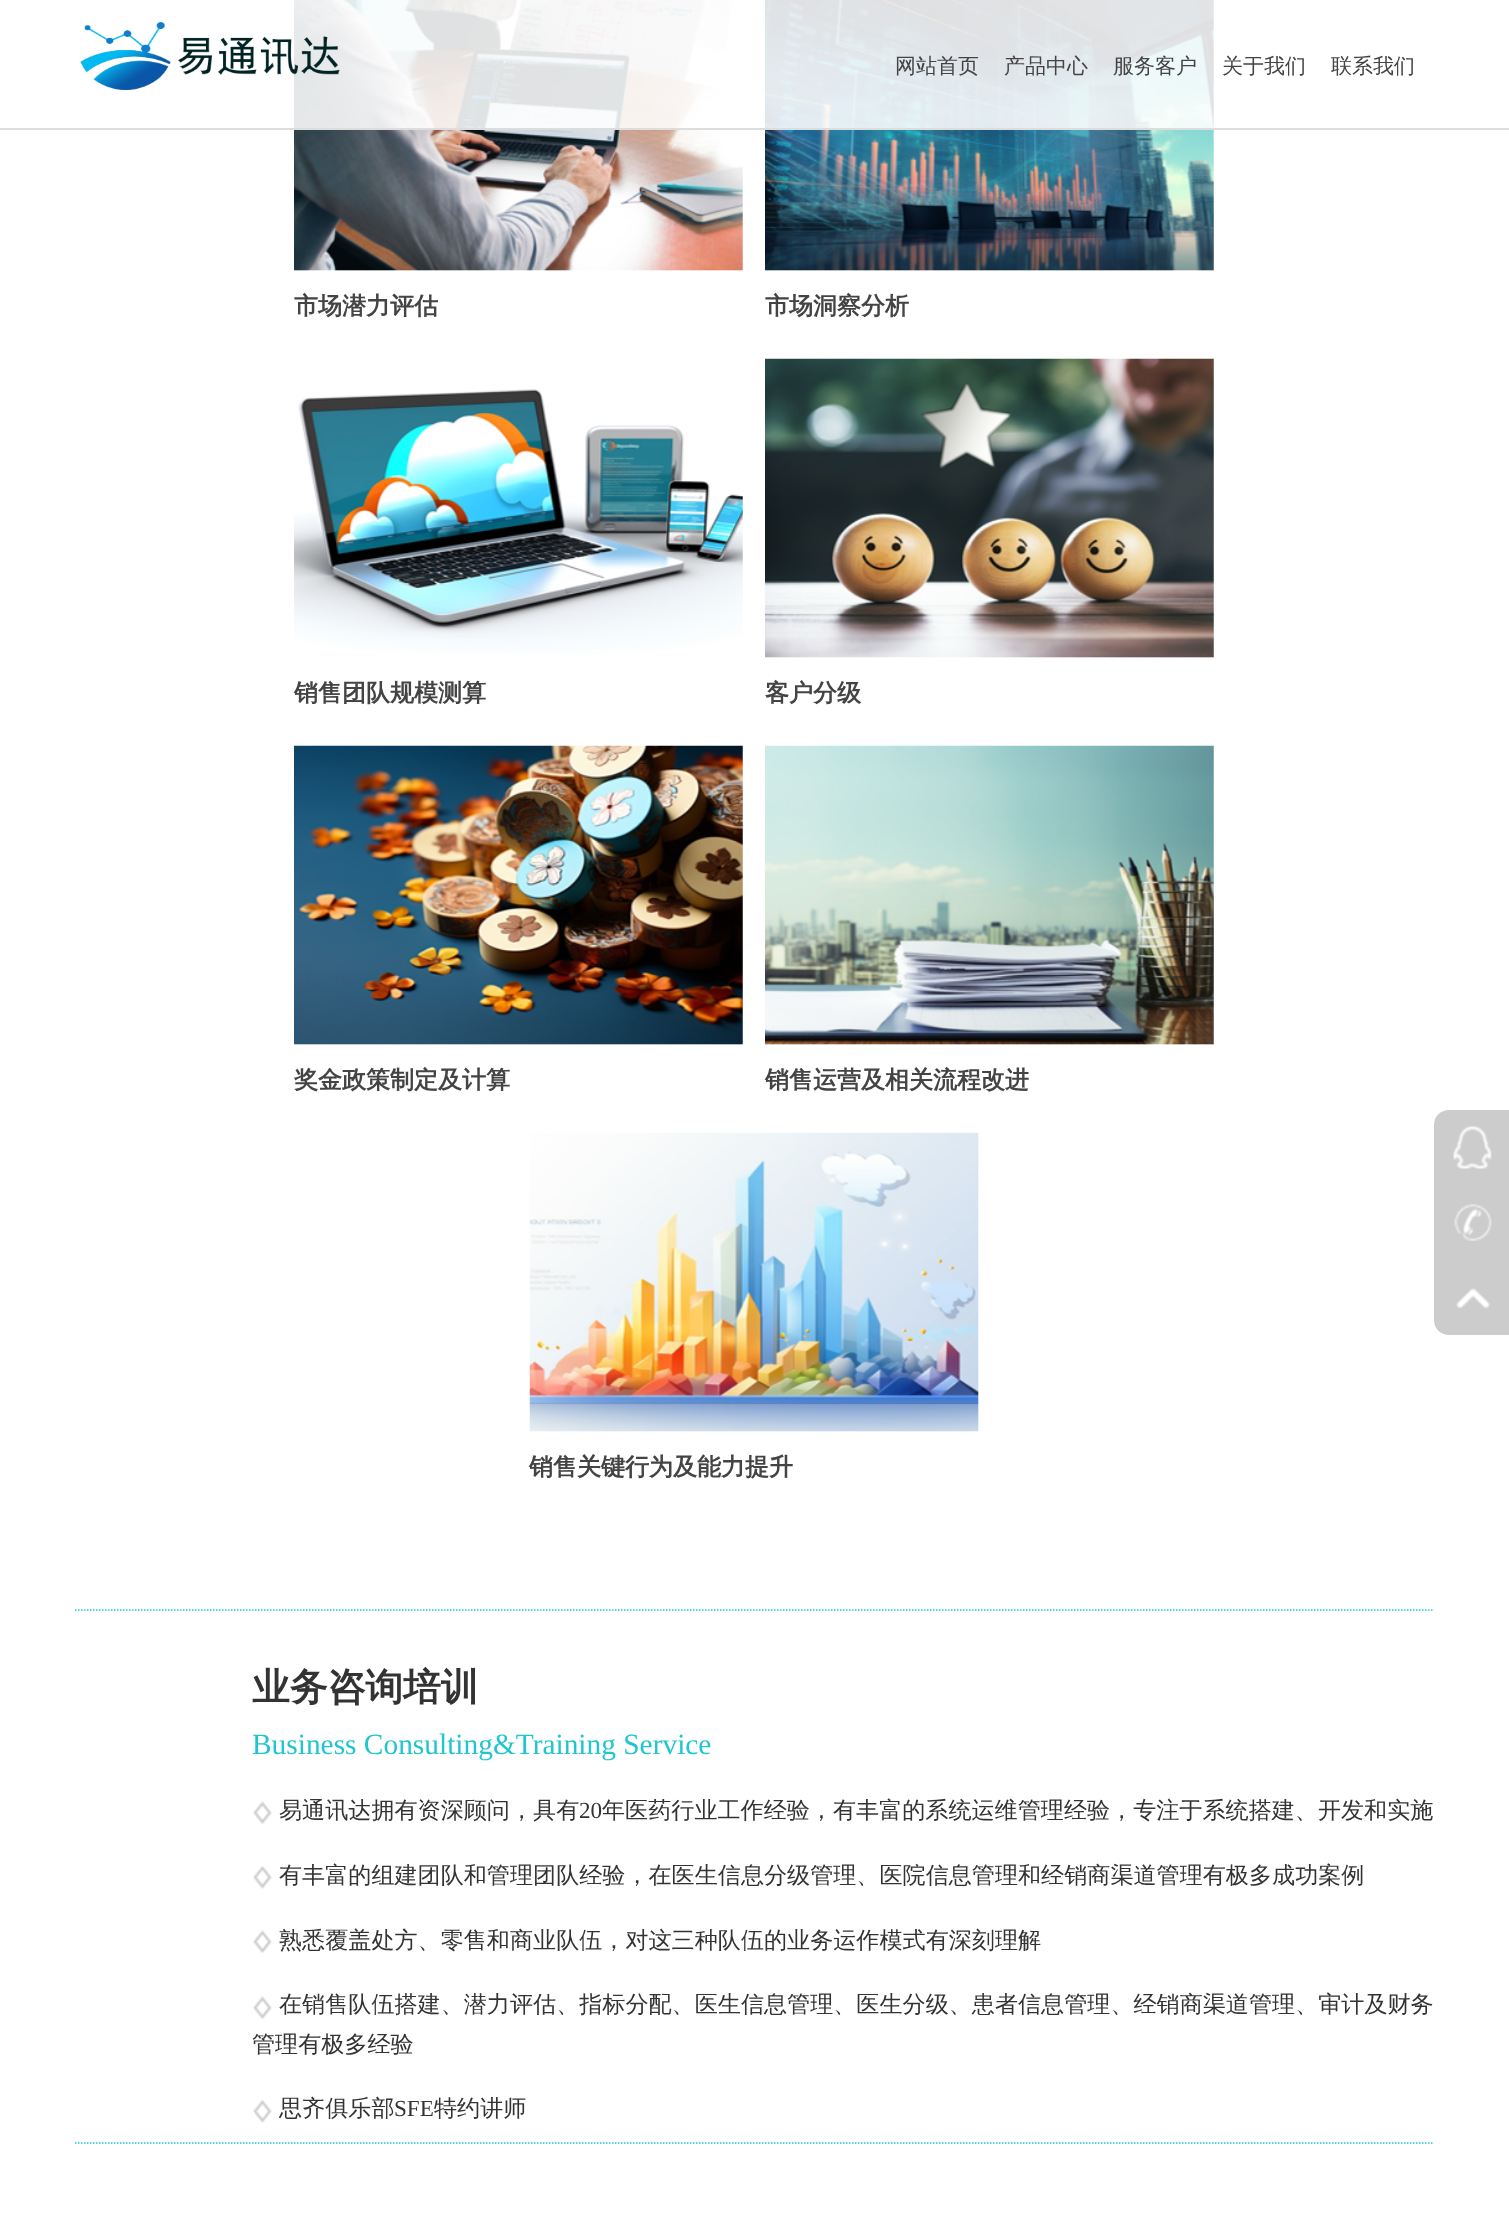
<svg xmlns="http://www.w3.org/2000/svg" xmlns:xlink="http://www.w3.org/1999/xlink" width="1509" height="2220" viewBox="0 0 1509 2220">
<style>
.cls-1{font:500 21px WenQuanYi Zen Hei;fill:#444444}
.cls-2{font:bold 24px WenQuanYi Zen Hei;fill:#444444}
.cls-3{font:bold 37.75px WenQuanYi Zen Hei;fill:#333333}
.cls-4{font:29.4px Liberation Serif;fill:#20c6cf}
.cls-5{font:500 23.1px WenQuanYi Zen Hei;fill:#333333}
.cls-6{font:23.1px Liberation Serif;fill:#333333}
</style>
<rect width="100%" height="100%" fill="#ffffff"/>
<image xlink:href="image1.png" x="294" y="0" width="449" height="271"/>
<image xlink:href="image2.png" x="765" y="0" width="449" height="271"/>
<rect fill="#ffffff" fill-opacity="0.88" x="294" y="0" width="920" height="128"/>
<rect fill="#dddddd" x="0" y="128" width="1509" height="2"/>
<image xlink:href="image0.png" x="80" y="22" width="260" height="68"/>
<path fill="none" stroke="#20c6cf" stroke-width="1.5" stroke-dasharray="1.5 1.5" d="M75 1610H1434"/>
<image xlink:href="image3.png" x="294" y="389" width="449" height="265"/>
<image xlink:href="image4.png" x="765" y="358" width="449" height="300"/>
<image xlink:href="image5.png" x="294" y="745" width="449" height="300"/>
<image xlink:href="image6.png" x="765" y="745" width="449" height="300"/>
<image xlink:href="image7.png" x="529" y="1132" width="450" height="300"/>
<path fill="none" stroke="#20c6cf" stroke-width="1.5" stroke-dasharray="1.5 1.5" d="M75 2143H1434"/>
<image xlink:href="image8.png" x="253" y="1801" width="19" height="23"/>
<image xlink:href="image9.png" x="253" y="1866" width="19" height="23"/>
<image xlink:href="image8.png" x="253" y="1930" width="19" height="23"/>
<image xlink:href="image8.png" x="253" y="1996" width="19" height="23"/>
<image xlink:href="image9.png" x="253" y="2100" width="19" height="23"/>
<path fill="#cccccc" d="M1449 1110H1509V1335H1449C1440.5 1335 1434 1328.5 1434 1320V1125C1434 1116.5 1440.5 1110 1449 1110Z"/>
<image xlink:href="image10.png" x="1453" y="1126" width="39" height="43"/>
<image xlink:href="image11.png" x="1454" y="1204" width="38" height="37"/>
<image xlink:href="image12.png" x="1456" y="1288" width="34" height="21"/>
<text class="cls-1" x="895" y="73">网站首页</text>
<text class="cls-1" x="1004" y="73">产品中心</text>
<text class="cls-1" x="1113" y="73">服务客户</text>
<text class="cls-1" x="1222" y="73">关于我们</text>
<text class="cls-1" x="1331" y="73">联系我们</text>
<text class="cls-2" x="294" y="314">市场潜力评估</text>
<text class="cls-2" x="765" y="314">市场洞察分析</text>
<text class="cls-2" x="294" y="701">销售团队规模测算</text>
<text class="cls-2" x="765" y="701">客户分级</text>
<text class="cls-2" x="294" y="1088">奖金政策制定及计算</text>
<text class="cls-2" x="765" y="1088">销售运营及相关流程改进</text>
<text class="cls-2" x="529" y="1475">销售关键行为及能力提升</text>
<text class="cls-3" x="252" y="1700">业务咨询培训</text>
<text class="cls-4" x="252" y="1754">Business Consulting&amp;Training Service</text>
<text class="cls-5" x="279" y="1818">易通讯达拥有资深顾问，具有</text>
<text class="cls-6" x="579" y="1818">20</text>
<text class="cls-5" x="602" y="1818">年医药行业工作经验，有丰富的系统运维管理经验，专注于系统搭建、开发和实施</text>
<text class="cls-5" x="279" y="1883">有丰富的组建团队和管理团队经验，在医生信息分级管理、医院信息管理和经销商渠道管理有极多成功案例</text>
<text class="cls-5" x="279" y="1948">熟悉覆盖处方、零售和商业队伍，对这三种队伍的业务运作模式有深刻理解</text>
<text class="cls-5" x="279" y="2012">在销售队伍搭建、潜力评估、指标分配、医生信息管理、医生分级、患者信息管理、经销商渠道管理、审计及财务</text>
<text class="cls-5" x="252" y="2052">管理有极多经验</text>
<text class="cls-5" x="279" y="2116">思齐俱乐部</text>
<text class="cls-6" x="394" y="2116">SFE</text>
<text class="cls-5" x="434" y="2116">特约讲师</text>
</svg>
